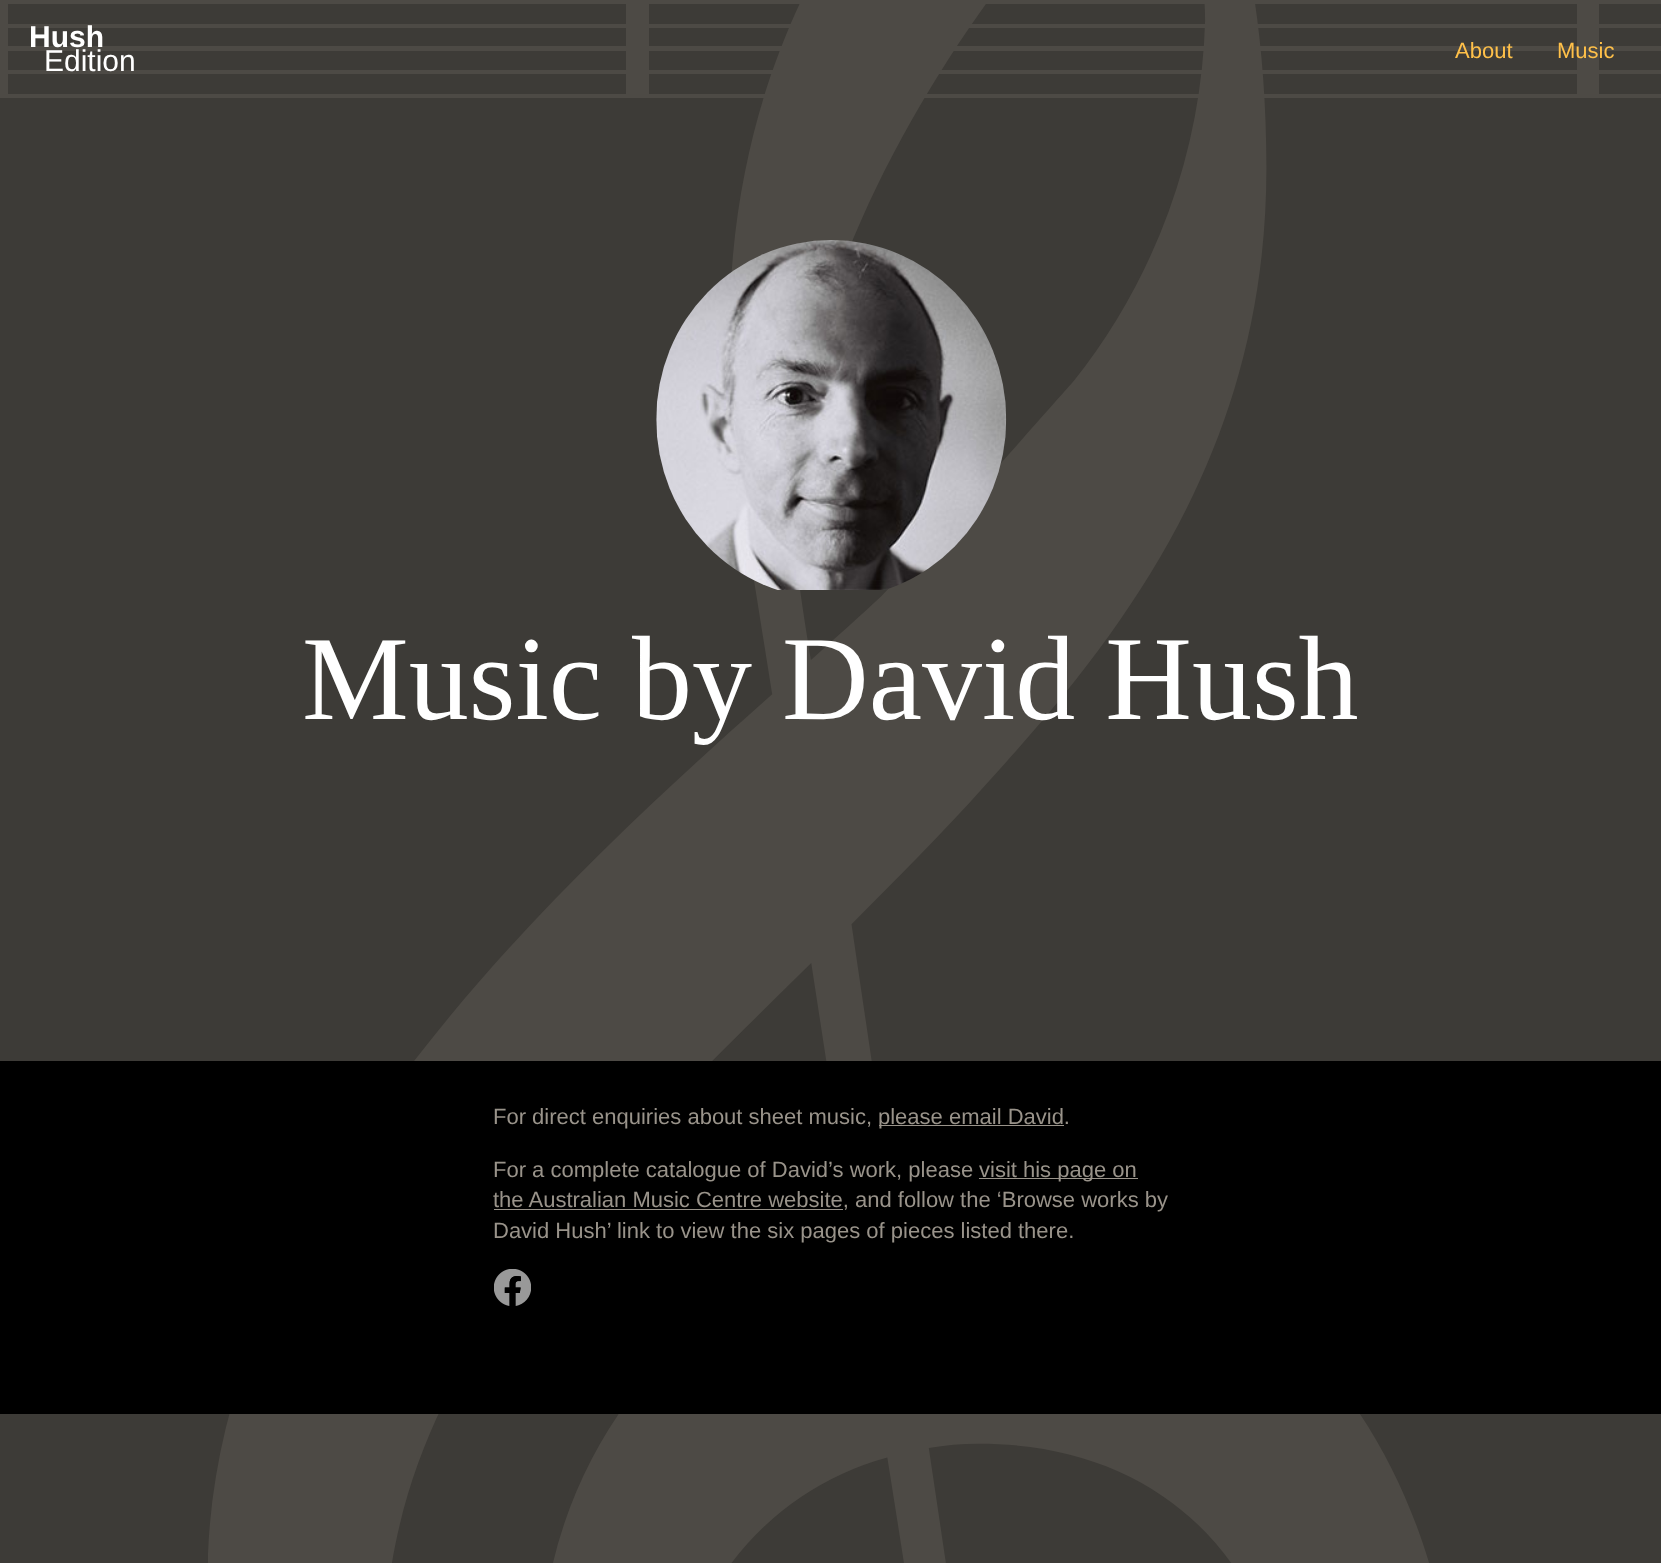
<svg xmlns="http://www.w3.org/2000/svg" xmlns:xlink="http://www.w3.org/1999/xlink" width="1661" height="1563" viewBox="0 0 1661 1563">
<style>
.cls-1{font:bold 30px Liberation Sans;fill:#ffffff}
.cls-2{font:30px Liberation Sans;fill:#ffffff}
.cls-3{font:22px Liberation Sans;fill:#ffc049}
.cls-4{font:120px Liberation Serif;fill:#ffffff}
.cls-5{font:22px Liberation Sans;fill:#99938a}
</style>
<defs>
<linearGradient id="g1" gradientUnits="userSpaceOnUse" x1="7.5" y1="49" x2="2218" y2="49"><stop offset="0" stop-color="#000000" stop-opacity="0"/><stop offset="0" stop-color="#4d4a45" stop-opacity="0"/><stop offset="0" stop-color="#4d4a45"/><stop offset="0" stop-color="#4d4a45"/><stop offset="0" stop-color="#4d4a45" stop-opacity="0"/><stop offset="0.14" stop-color="#4d4a45" stop-opacity="0"/><stop offset="0.14" stop-color="#4d4a45"/><stop offset="0.14" stop-color="#4d4a45"/><stop offset="0.14" stop-color="#4d4a45" stop-opacity="0"/><stop offset="0.28" stop-color="#4d4a45" stop-opacity="0"/><stop offset="0.28" stop-color="#4d4a45"/><stop offset="0.29" stop-color="#4d4a45"/><stop offset="0.29" stop-color="#4d4a45" stop-opacity="0"/><stop offset="0.43" stop-color="#4d4a45" stop-opacity="0"/><stop offset="0.43" stop-color="#4d4a45"/><stop offset="0.43" stop-color="#4d4a45"/><stop offset="0.43" stop-color="#4d4a45" stop-opacity="0"/><stop offset="0.57" stop-color="#4d4a45" stop-opacity="0"/><stop offset="0.57" stop-color="#4d4a45"/><stop offset="0.57" stop-color="#4d4a45"/><stop offset="0.57" stop-color="#4d4a45" stop-opacity="0"/><stop offset="0.71" stop-color="#4d4a45" stop-opacity="0"/><stop offset="0.71" stop-color="#4d4a45"/><stop offset="0.72" stop-color="#4d4a45"/><stop offset="0.72" stop-color="#4d4a45" stop-opacity="0"/><stop offset="0.86" stop-color="#4d4a45" stop-opacity="0"/><stop offset="0.86" stop-color="#4d4a45"/><stop offset="0.86" stop-color="#4d4a45"/><stop offset="0.86" stop-color="#4d4a45" stop-opacity="0"/><stop offset="1" stop-color="#4d4a45" stop-opacity="0"/><stop offset="1" stop-color="#4d4a45"/><stop offset="1" stop-color="#4d4a45"/><stop offset="1" stop-color="#4d4a45" stop-opacity="0"/></linearGradient>
</defs>
<rect width="100%" height="100%" fill="#3d3b37"/>
<image xlink:href="image0.png" x="208" y="4" width="1221" height="1559"/>
<rect fill="url(#g1)" x="626" y="4" width="973" height="90"/>
<rect fill="#4d4a45" x="0" y="0" width="1661" height="4"/>
<rect fill="#4d4a45" x="0" y="24" width="1661" height="4"/>
<rect fill="#4d4a45" x="0" y="46" width="1661" height="5"/>
<rect fill="#4d4a45" x="0" y="70" width="1661" height="4"/>
<rect fill="#4d4a45" x="0" y="94" width="1661" height="4"/>
<rect fill="#4d4a45" x="0" y="0" width="8" height="98"/>
<image xlink:href="image1.png" x="656" y="240" width="351" height="350"/>
<rect fill="#000000" x="0" y="1061" width="1661" height="353"/>
<rect fill="#99938a" x="879" y="1125" width="185" height="1"/>
<rect fill="#99938a" x="979" y="1178" width="159" height="1"/>
<rect fill="#99938a" x="494" y="1209" width="349" height="1"/>
<image xlink:href="image2.png" x="494" y="1269" width="37" height="37"/>
<text class="cls-1" x="29" y="47">Hush</text>
<text class="cls-2" x="44" y="71">Edition</text>
<text class="cls-3" x="1455" y="58">About</text>
<text class="cls-3" x="1557" y="58">Music</text>
<text class="cls-4" x="302" y="719">Music by David Hush</text>
<text class="cls-5" x="493" y="1124">For direct enquiries about sheet music,</text>
<text class="cls-5" x="878" y="1124">please email David.</text>
<text class="cls-5" x="493" y="1177">For a complete catalogue of David’s work, please</text>
<text class="cls-5" x="979" y="1177">visit his page on</text>
<text class="cls-5"><tspan x="493" y="1207">the Australian Music Centre website, and follow the ‘Browse works by</tspan><tspan x="493" y="1238">David Hush’ link to view the six pages of pieces listed there.</tspan></text>
</svg>
